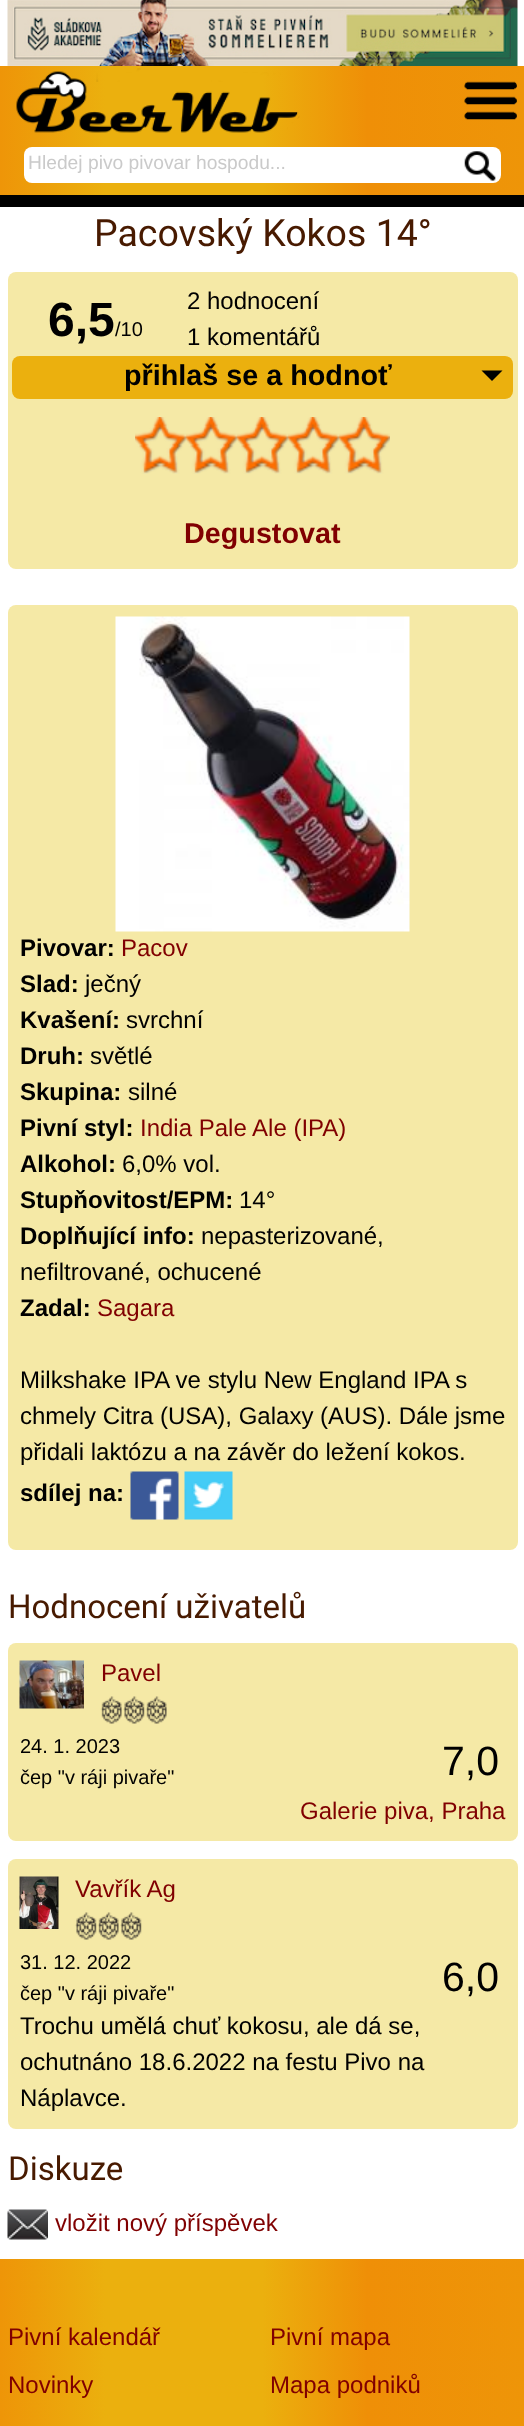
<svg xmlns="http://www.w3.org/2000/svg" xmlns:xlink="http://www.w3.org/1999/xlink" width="524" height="2426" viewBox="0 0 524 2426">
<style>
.cls-1{font:19.25px Liberation Sans;fill:#cacaca}
.cls-2{font:37.5px Roboto;fill:#481a00}
.cls-3{font:bold 48px Liberation Sans;fill:#000000}
.cls-4{font:20px Liberation Sans;fill:#000000}
.cls-5{font:24px Liberation Sans;fill:#000000}
.cls-6{font:bold 28.75px Liberation Sans;fill:#000000}
.cls-7{font:bold 28.75px Liberation Sans;fill:#800001}
.cls-8{font:bold 24px Liberation Sans;fill:#000000}
.cls-9{font:24px Liberation Sans;fill:#800001}
.cls-10{font:33px Roboto;fill:#481a00}
.cls-11{font:41px Liberation Sans;fill:#000000}
</style>
<defs>
<linearGradient id="g1" gradientUnits="userSpaceOnUse" x1="0" y1="131" x2="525" y2="130"><stop offset="0" stop-color="#ee9508"/><stop offset="0.2" stop-color="#ebb00e"/><stop offset="0.5" stop-color="#ebb00e"/><stop offset="0.7" stop-color="#ef8f07"/><stop offset="1" stop-color="#ee9508"/></linearGradient>
<linearGradient id="g2" gradientUnits="userSpaceOnUse" x1="0" y1="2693" x2="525" y2="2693"><stop offset="0" stop-color="#ee9508"/><stop offset="0.2" stop-color="#ebb00e"/><stop offset="0.5" stop-color="#ebb00e"/><stop offset="0.7" stop-color="#ef8f07"/><stop offset="1" stop-color="#ee9508"/></linearGradient>
</defs>
<rect width="100%" height="100%" fill="#ffffff"/>
<image xlink:href="image0.png" x="7" y="0" width="511" height="66"/>
<rect fill="url(#g1)" x="0" y="66" width="524" height="129"/>
<image xlink:href="image1.png" x="16" y="68" width="284" height="65"/>
<image xlink:href="image2.png" x="464" y="81" width="53" height="39"/>
<rect fill="#ffffff" x="24" y="147" width="477" height="36" rx="8"/>
<image xlink:href="image3.png" x="464" y="151" width="32" height="30"/>
<rect fill="#000000" x="0" y="195" width="524" height="12"/>
<rect fill="#f5e9a6" x="8" y="272" width="510" height="297" rx="8"/>
<rect fill="#ebb00e" x="12" y="356" width="501" height="43" rx="8"/>
<path fill="#000000" d="M481.5 370.5H502.5L492 381Z"/>
<image xlink:href="image4.png" x="135" y="417" width="255" height="57"/>
<rect fill="#f5e9a6" x="8" y="605" width="510" height="945" rx="8"/>
<image xlink:href="image5.png" x="115" y="616" width="295" height="316"/>
<image xlink:href="image6.png" x="130" y="1471" width="49" height="49"/>
<image xlink:href="image7.png" x="184" y="1471" width="49" height="49"/>
<rect fill="#f5e9a6" x="8" y="1643" width="510" height="198" rx="8"/>
<image xlink:href="image8.png" x="19" y="1660" width="65" height="49"/>
<image xlink:href="image9.png" x="100" y="1696" width="22" height="28"/>
<image xlink:href="image10.png" x="123" y="1696" width="22" height="28"/>
<image xlink:href="image9.png" x="145" y="1696" width="22" height="28"/>
<rect fill="#f5e9a6" x="8" y="1859" width="510" height="270" rx="8"/>
<image xlink:href="image11.png" x="19" y="1876" width="40" height="53"/>
<image xlink:href="image10.png" x="75" y="1912" width="22" height="28"/>
<image xlink:href="image9.png" x="97" y="1912" width="22" height="28"/>
<image xlink:href="image10.png" x="120" y="1912" width="22" height="28"/>
<image xlink:href="image12.png" x="7" y="2209" width="41" height="31"/>
<rect fill="url(#g2)" x="0" y="2259" width="524" height="167"/>
<text class="cls-1" x="28" y="169">Hledej pivo pivovar hospodu...</text>
<text class="cls-2" x="94" y="246">Pacovský Kokos 14°</text>
<text class="cls-3" x="48" y="336">6,5</text>
<text class="cls-4" x="115" y="336">/10</text>
<text class="cls-5"><tspan x="187" y="309">2 hodnocení</tspan><tspan x="187" y="345">1 komentářů</tspan></text>
<text class="cls-6" x="124" y="385">přihlaš se a hodnoť</text>
<text class="cls-7" x="184" y="543">Degustovat</text>
<text class="cls-8" x="20" y="956">Pivovar:</text>
<text class="cls-9" x="121" y="956">Pacov</text>
<text class="cls-8" x="20" y="992">Slad:</text>
<text class="cls-5" x="85" y="992">ječný</text>
<text class="cls-8" x="20" y="1028">Kvašení:</text>
<text class="cls-5" x="126" y="1028">svrchní</text>
<text class="cls-8" x="20" y="1064">Druh:</text>
<text class="cls-5" x="90" y="1064">světlé</text>
<text class="cls-8" x="20" y="1100">Skupina:</text>
<text class="cls-5" x="128" y="1100">silné</text>
<text class="cls-8" x="20" y="1136">Pivní styl:</text>
<text class="cls-9" x="140" y="1136">India Pale Ale (IPA)</text>
<text class="cls-8" x="20" y="1172">Alkohol:</text>
<text class="cls-5" x="122" y="1172">6,0% vol.</text>
<text class="cls-8" x="20" y="1208">Stupňovitost/EPM:</text>
<text class="cls-5" x="239" y="1208">14°</text>
<text class="cls-8" x="20" y="1244">Doplňující info:</text>
<text class="cls-5" x="201" y="1244">nepasterizované,</text>
<text class="cls-5" x="20" y="1280">nefiltrované, ochucené</text>
<text class="cls-8" x="20" y="1316">Zadal:</text>
<text class="cls-9" x="97" y="1316">Sagara</text>
<text class="cls-5"><tspan x="20" y="1388">Milkshake IPA ve stylu New England IPA s</tspan><tspan x="20" y="1424">chmely Citra (USA), Galaxy (AUS). Dále jsme</tspan><tspan x="20" y="1460">přidali laktózu a na závěr do ležení kokos.</tspan></text>
<text class="cls-8" x="20" y="1501">sdílej na:</text>
<text class="cls-10" x="8" y="1618">Hodnocení uživatelů</text>
<text class="cls-9" x="101" y="1681">Pavel</text>
<text class="cls-4"><tspan x="20" y="1753">24. 1. 2023</tspan><tspan x="20" y="1784">čep "v ráji pivaře"</tspan></text>
<text class="cls-11" x="442" y="1775">7,0</text>
<text class="cls-9" x="300" y="1819">Galerie piva, Praha</text>
<text class="cls-9" x="75" y="1897">Vavřík Ag</text>
<text class="cls-4"><tspan x="20" y="1969">31. 12. 2022</tspan><tspan x="20" y="2000">čep "v ráji pivaře"</tspan></text>
<text class="cls-11" x="442" y="1991">6,0</text>
<text class="cls-5"><tspan x="20" y="2034">Trochu umělá chuť kokosu, ale dá se,</tspan><tspan x="20" y="2070">ochutnáno 18.6.2022 na festu Pivo na</tspan><tspan x="20" y="2106">Náplavce.</tspan></text>
<text class="cls-10" x="8" y="2180">Diskuze</text>
<text class="cls-9" x="55" y="2231">vložit nový příspěvek</text>
<text class="cls-9" x="8" y="2345">Pivní kalendář</text>
<text class="cls-9" x="8" y="2393">Novinky</text>
<text class="cls-9" x="270" y="2345">Pivní mapa</text>
<text class="cls-9" x="270" y="2393">Mapa podniků</text>
</svg>
